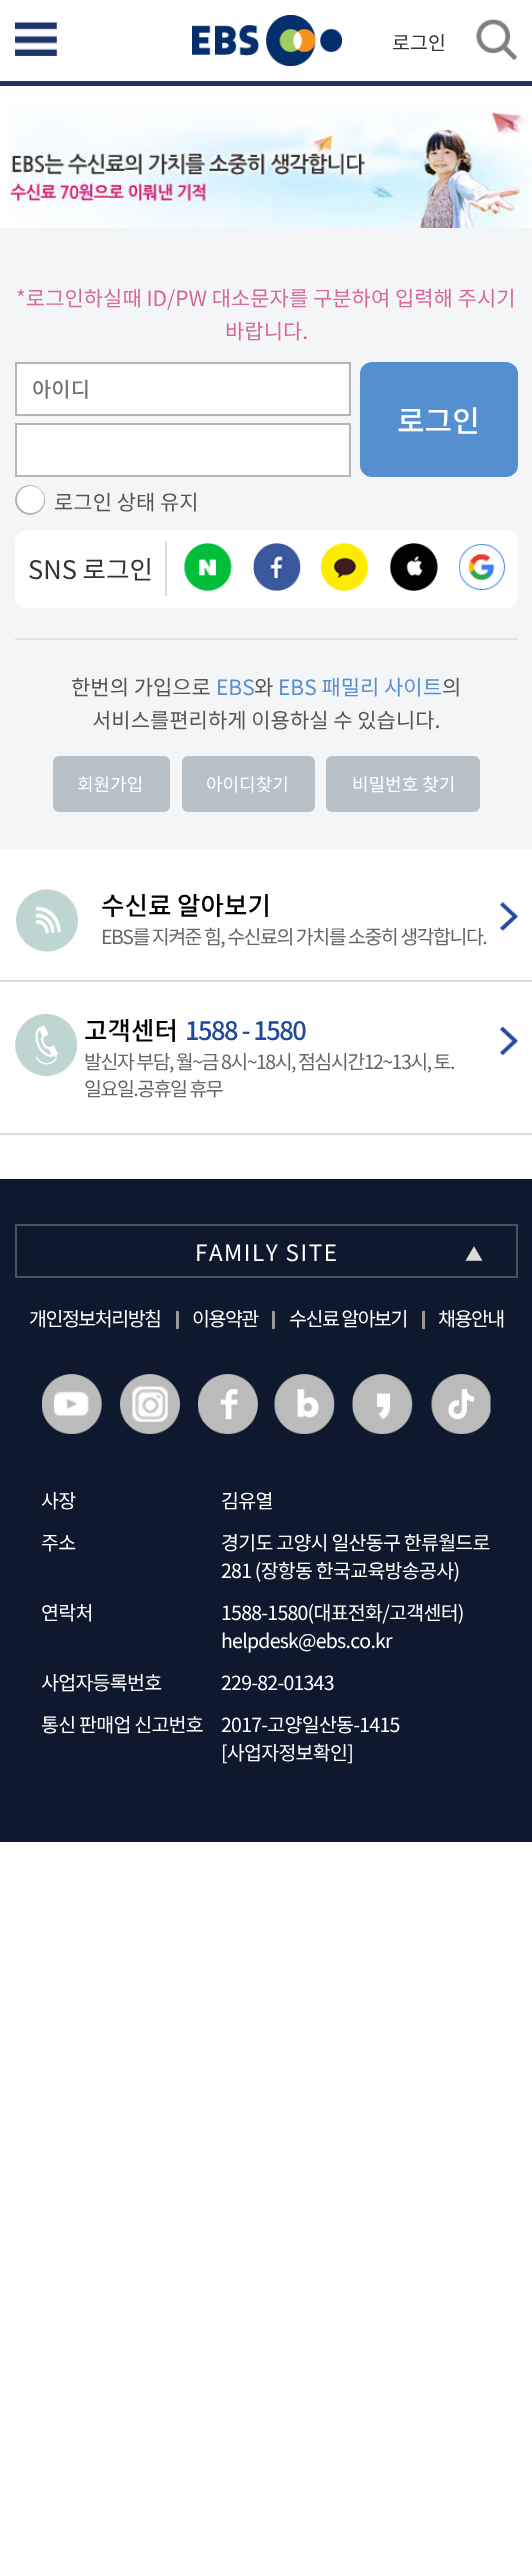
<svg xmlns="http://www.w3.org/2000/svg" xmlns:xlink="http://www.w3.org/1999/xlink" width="532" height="2572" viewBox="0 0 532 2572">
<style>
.cls-1{font:19.5px Noto Sans KR;fill:#333333}
.cls-2{font:21px Noto Sans KR;fill:#d5699e}
.cls-3{font:500 21px Noto Sans KR;fill:#757575}
.cls-4{font:500 30px Noto Sans KR;fill:#ffffff}
.cls-5{font:21px Noto Sans KR;fill:#555555}
.cls-6{font:25.5px Noto Sans KR;fill:#333333}
.cls-7{font:21px Noto Sans KR;fill:#588fcf}
.cls-8{font:18px Noto Sans KR;fill:#ffffff}
.cls-9{font:500 25.5px Noto Sans KR;fill:#000000}
.cls-10{font:19.5px Noto Sans KR;letter-spacing:-1.5px;fill:#666666}
.cls-11{font:500 25.5px Noto Sans KR;letter-spacing:-1.5px;fill:#21489b}
.cls-12{font:22.5px Noto Sans KR;letter-spacing:1.5px;fill:#ffffff}
.cls-13{font:18px Noto Sans KR;letter-spacing:1.5px;fill:#dcdcdc}
.cls-14{font:19.5px Noto Sans KR;letter-spacing:-1.5px;fill:#ffffff}
.cls-15{font:19.5px Noto Sans KR;letter-spacing:-0.75px;fill:#ffffff}
</style>
<rect width="100%" height="100%" fill="#ffffff"/>
<rect fill="#1e3465" x="0" y="81" width="532" height="5"/>
<image xlink:href="image0.png" x="15" y="22" width="42" height="34"/>
<image xlink:href="image1.png" x="192" y="15" width="150" height="51"/>
<image xlink:href="image2.png" x="476" y="19" width="42" height="41"/>
<rect fill="#f4f5f7" x="0" y="228" width="532" height="621"/>
<image xlink:href="image3.png" x="8" y="104" width="524" height="124"/>
<rect fill="#ffffff" stroke="#b5b5b5" stroke-width="2" x="16" y="363" width="334" height="52"/>
<rect fill="#ffffff" stroke="#b5b5b5" stroke-width="2" x="16" y="424" width="334" height="52"/>
<rect fill="#558fcf" x="360" y="362" width="158" height="115" rx="12"/>
<circle fill="#b5b5b5" cx="30" cy="500" r="15"/>
<circle fill="#ffffff" cx="30.5" cy="499.5" r="13.5"/>
<rect fill="#ffffff" x="15" y="530" width="503" height="78" rx="12"/>
<rect fill="#dbdbdb" x="165" y="542" width="2" height="54"/>
<image xlink:href="image4.png" x="184" y="543" width="48" height="48"/>
<image xlink:href="image5.png" x="253" y="543" width="48" height="48"/>
<image xlink:href="image6.png" x="321" y="543" width="48" height="48"/>
<image xlink:href="image7.png" x="390" y="543" width="48" height="48"/>
<image xlink:href="image8.png" x="459" y="544" width="46" height="47"/>
<rect fill="#dfe2e7" x="15" y="638" width="503" height="2"/>
<rect fill="#b8c1c8" x="53" y="756" width="117" height="56" rx="6"/>
<rect fill="#b8c1c8" x="182" y="756" width="133" height="56" rx="6"/>
<rect fill="#b8c1c8" x="326" y="756" width="154" height="56" rx="6"/>
<rect fill="#dcdcdc" x="0" y="980" width="532" height="2"/>
<image xlink:href="image9.png" x="16" y="889" width="62" height="63"/>
<image xlink:href="image10.png" x="500" y="901" width="18" height="31"/>
<rect fill="#dcdcdc" x="0" y="1133" width="532" height="2"/>
<image xlink:href="image11.png" x="15" y="1014" width="63" height="62"/>
<image xlink:href="image12.png" x="500" y="1026" width="18" height="30"/>
<rect fill="#0e192d" x="0" y="1179" width="532" height="663"/>
<rect fill="none" stroke="#4b5264" stroke-width="2" x="16" y="1225" width="501" height="52"/>
<rect fill="#989898" x="176" y="1311" width="3" height="18"/>
<rect fill="#989898" x="272" y="1311" width="3" height="18"/>
<rect fill="#989898" x="422" y="1311" width="3" height="18"/>
<image xlink:href="image13.png" x="42" y="1374" width="60" height="60"/>
<image xlink:href="image14.png" x="120" y="1374" width="60" height="60"/>
<image xlink:href="image15.png" x="198" y="1374" width="60" height="60"/>
<image xlink:href="image16.png" x="274" y="1374" width="61" height="60"/>
<image xlink:href="image17.png" x="352" y="1374" width="61" height="60"/>
<image xlink:href="image18.png" x="431" y="1374" width="60" height="60"/>
<text class="cls-1" x="392" y="50">로그인</text>
<text class="cls-2" x="16" y="306">*로그인하실때 ID/PW 대소문자를 구분하여 입력해 주시기</text>
<text class="cls-2" x="225" y="339">바랍니다.</text>
<text class="cls-3" x="32" y="397">아이디</text>
<text class="cls-4" x="397" y="432">로그인</text>
<text class="cls-5" x="54" y="510">로그인 상태 유지</text>
<text class="cls-6" x="28" y="579">SNS 로그인</text>
<text class="cls-5" x="71" y="695">한번의 가입으로</text>
<text class="cls-7" x="216" y="695">EBS</text>
<text class="cls-5" x="254" y="695">와</text>
<text class="cls-7" x="278" y="695">EBS 패밀리 사이트</text>
<text class="cls-5" x="442" y="695">의</text>
<text class="cls-5" x="92" y="728">서비스를편리하게 이용하실 수 있습니다.</text>
<text class="cls-8" x="77" y="791">회원가입</text>
<text class="cls-8" x="206" y="791">아이디찾기</text>
<text class="cls-8" x="352" y="791">비밀번호 찾기</text>
<text class="cls-9" x="101" y="915">수신료 알아보기</text>
<text class="cls-10" x="101" y="944">EBS를 지켜준 힘, 수신료의 가치를 소중히 생각합니다.</text>
<text class="cls-9" x="84" y="1040">고객센터</text>
<text class="cls-11" x="185" y="1040">1588 - 1580</text>
<text class="cls-10"><tspan x="84" y="1069">발신자 부담, 월~금 8시~18시, 점심시간12~13시, 토.</tspan><tspan x="84" y="1096">일요일.공휴일 휴무</tspan></text>
<text class="cls-12" x="195" y="1261">FAMILY SITE</text>
<text class="cls-13" x="465" y="1261">▲</text>
<text class="cls-14" x="29" y="1326">개인정보처리방침</text>
<text class="cls-14" x="192" y="1326">이용약관</text>
<text class="cls-14" x="289" y="1326">수신료 알아보기</text>
<text class="cls-14" x="438" y="1326">채용안내</text>
<text class="cls-15" x="41" y="1508">사장</text>
<text class="cls-15" x="221" y="1508">김유열</text>
<text class="cls-15" x="41" y="1550">주소</text>
<text class="cls-15"><tspan x="221" y="1550">경기도 고양시 일산동구 한류월드로</tspan><tspan x="221" y="1578">281 (장항동 한국교육방송공사)</tspan></text>
<text class="cls-15" x="41" y="1620">연락처</text>
<text class="cls-15"><tspan x="221" y="1620">1588-1580(대표전화/고객센터)</tspan><tspan x="221" y="1648">helpdesk@ebs.co.kr</tspan></text>
<text class="cls-15" x="41" y="1690">사업자등록번호</text>
<text class="cls-15" x="221" y="1690">229-82-01343</text>
<text class="cls-15" x="41" y="1732">통신 판매업 신고번호</text>
<text class="cls-15"><tspan x="221" y="1732">2017-고양일산동-1415</tspan><tspan x="221" y="1760">[사업자정보확인]</tspan></text>
</svg>
